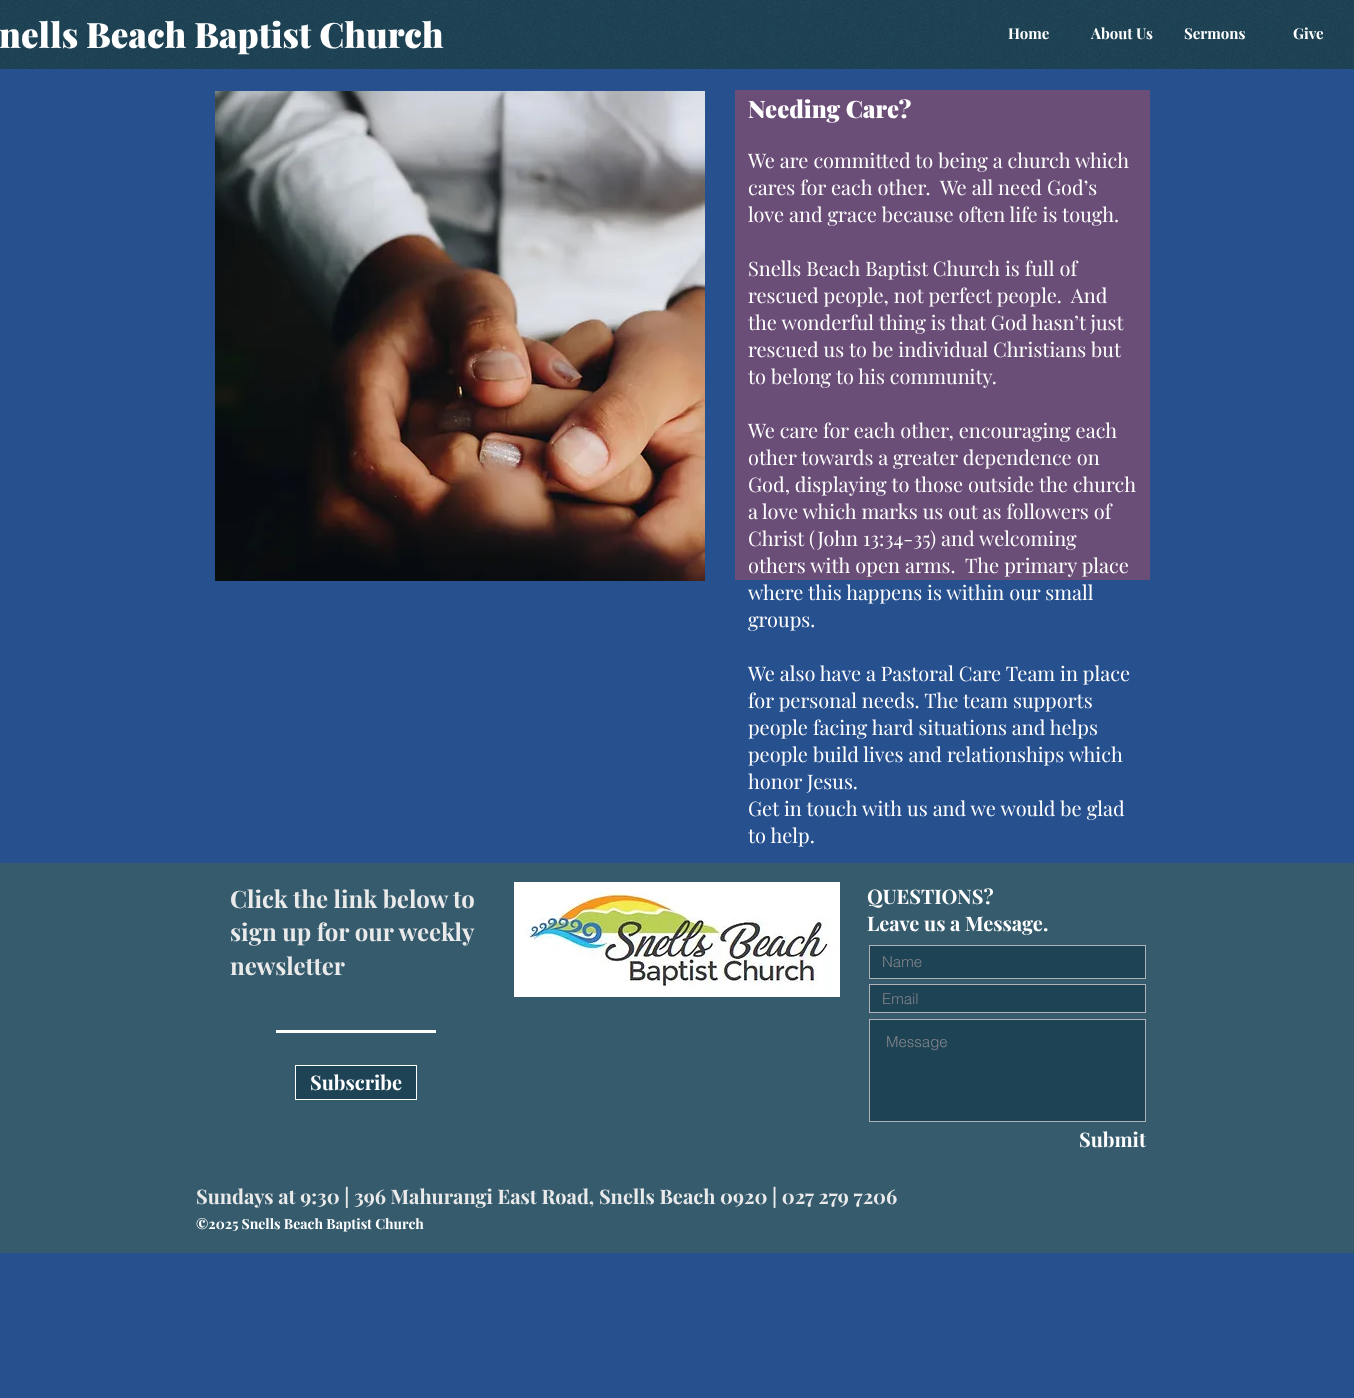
<svg xmlns="http://www.w3.org/2000/svg" xmlns:xlink="http://www.w3.org/1999/xlink" width="1354" height="1398" viewBox="0 0 1354 1398">
<style>
.cls-1{font:900 35px Playfair Display;fill:#ffffff}
.cls-2{font:bold 15px Playfair Display;fill:#ffffff}
.cls-3{font:900 24px Playfair Display;fill:#ffffff}
.cls-4{font:20px Playfair Display;fill:#ffffff}
.cls-5{font:bold 24px Playfair Display;fill:#eaeaea}
.cls-6{font:bold 20px Playfair Display;fill:#ffffff}
.cls-7{font:300 15px helvetica;fill:#84858a}
.cls-8{font:bold 20px 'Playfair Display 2';fill:#eaeaea}
.cls-9{font:bold 14px 'Playfair Display 2';fill:#ffffff}
</style>
<rect width="100%" height="100%" fill="#27508f"/>
<rect fill="#1d4355" x="0" y="0" width="1354" height="69"/>
<image xlink:href="image0.png" x="0" y="0" width="1354" height="69"/>
<image xlink:href="image1.png" x="215" y="91" width="490" height="490"/>
<rect fill="#6a4e77" x="735" y="90" width="415" height="490"/>
<rect fill="#365b6d" x="0" y="863" width="1354" height="390"/>
<image xlink:href="image2.png" x="514" y="882" width="326" height="115"/>
<rect fill="#ffffff" x="276" y="1030" width="160" height="3"/>
<rect fill="#1d4355" stroke="#b0b2b8" x="869.5" y="945.5" width="276" height="33"/>
<rect fill="#1d4355" stroke="#b0b2b8" x="869.5" y="984.5" width="276" height="28"/>
<rect fill="#1d4355" stroke="#b0b2b8" x="869.5" y="1019.5" width="276" height="102"/>
<rect fill="#1d4355" stroke="#ffffff" x="295.5" y="1065.5" width="121" height="34"/>
<text class="cls-1" x="-1" y="48">nells Beach Baptist Church</text>
<text class="cls-2" x="1008" y="39">Home</text>
<text class="cls-2" x="1091" y="39">About Us</text>
<text class="cls-2" x="1184" y="39">Sermons</text>
<text class="cls-2" x="1293" y="39">Give</text>
<text class="cls-3" x="748" y="118">Needing Care?</text>
<text class="cls-4" xml:space="preserve"><tspan x="748" y="168">We are committed to being a church which</tspan><tspan x="748" y="195">cares for each other.  We all need God’s</tspan><tspan x="748" y="222">love and grace because often life is tough.</tspan></text>
<text class="cls-4" xml:space="preserve"><tspan x="748" y="276">Snells Beach Baptist Church is full of</tspan><tspan x="748" y="303">rescued people, not perfect people.  And</tspan><tspan x="748" y="330">the wonderful thing is that God hasn’t just</tspan><tspan x="748" y="357">rescued us to be individual Christians but</tspan><tspan x="748" y="384">to belong to his community.</tspan></text>
<text class="cls-4" xml:space="preserve"><tspan x="748" y="438">We care for each other, encouraging each</tspan><tspan x="748" y="465">other towards a greater dependence on</tspan><tspan x="748" y="492">God, displaying to those outside the church</tspan><tspan x="748" y="519">a love which marks us out as followers of</tspan><tspan x="748" y="546">Christ (John 13:34-35) and welcoming</tspan><tspan x="748" y="573">others with open arms.  The primary place</tspan><tspan x="748" y="600">where this happens is within our small</tspan><tspan x="748" y="627">groups.</tspan></text>
<text class="cls-4"><tspan x="748" y="681">We also have a Pastoral Care Team in place</tspan><tspan x="748" y="708">for personal needs. The team supports</tspan><tspan x="748" y="735">people facing hard situations and helps</tspan><tspan x="748" y="762">people build lives and relationships which</tspan><tspan x="748" y="789">honor Jesus.</tspan><tspan x="748" y="816">Get in touch with us and we would be glad</tspan><tspan x="748" y="843">to help.</tspan></text>
<text class="cls-5"><tspan x="230" y="908">Click the link below to</tspan><tspan x="230" y="941">sign up for our weekly</tspan><tspan x="230" y="975">newsletter</tspan></text>
<text class="cls-6"><tspan x="867" y="904">QUESTIONS?</tspan><tspan x="867" y="931">Leave us a Message.</tspan></text>
<text class="cls-7" x="882" y="967">Name</text>
<text class="cls-7" x="882" y="1004">Email</text>
<text class="cls-7" x="886" y="1047">Message</text>
<text class="cls-6" x="1079" y="1147">Submit</text>
<text class="cls-6" x="310" y="1090">Subscribe</text>
<text class="cls-8" x="196" y="1204">Sundays at 9:30 | 396 Mahurangi East Road, Snells Beach 0920 | 027 279 7206</text>
<text class="cls-9" x="196" y="1229">©2025 Snells Beach Baptist Church</text>
</svg>
